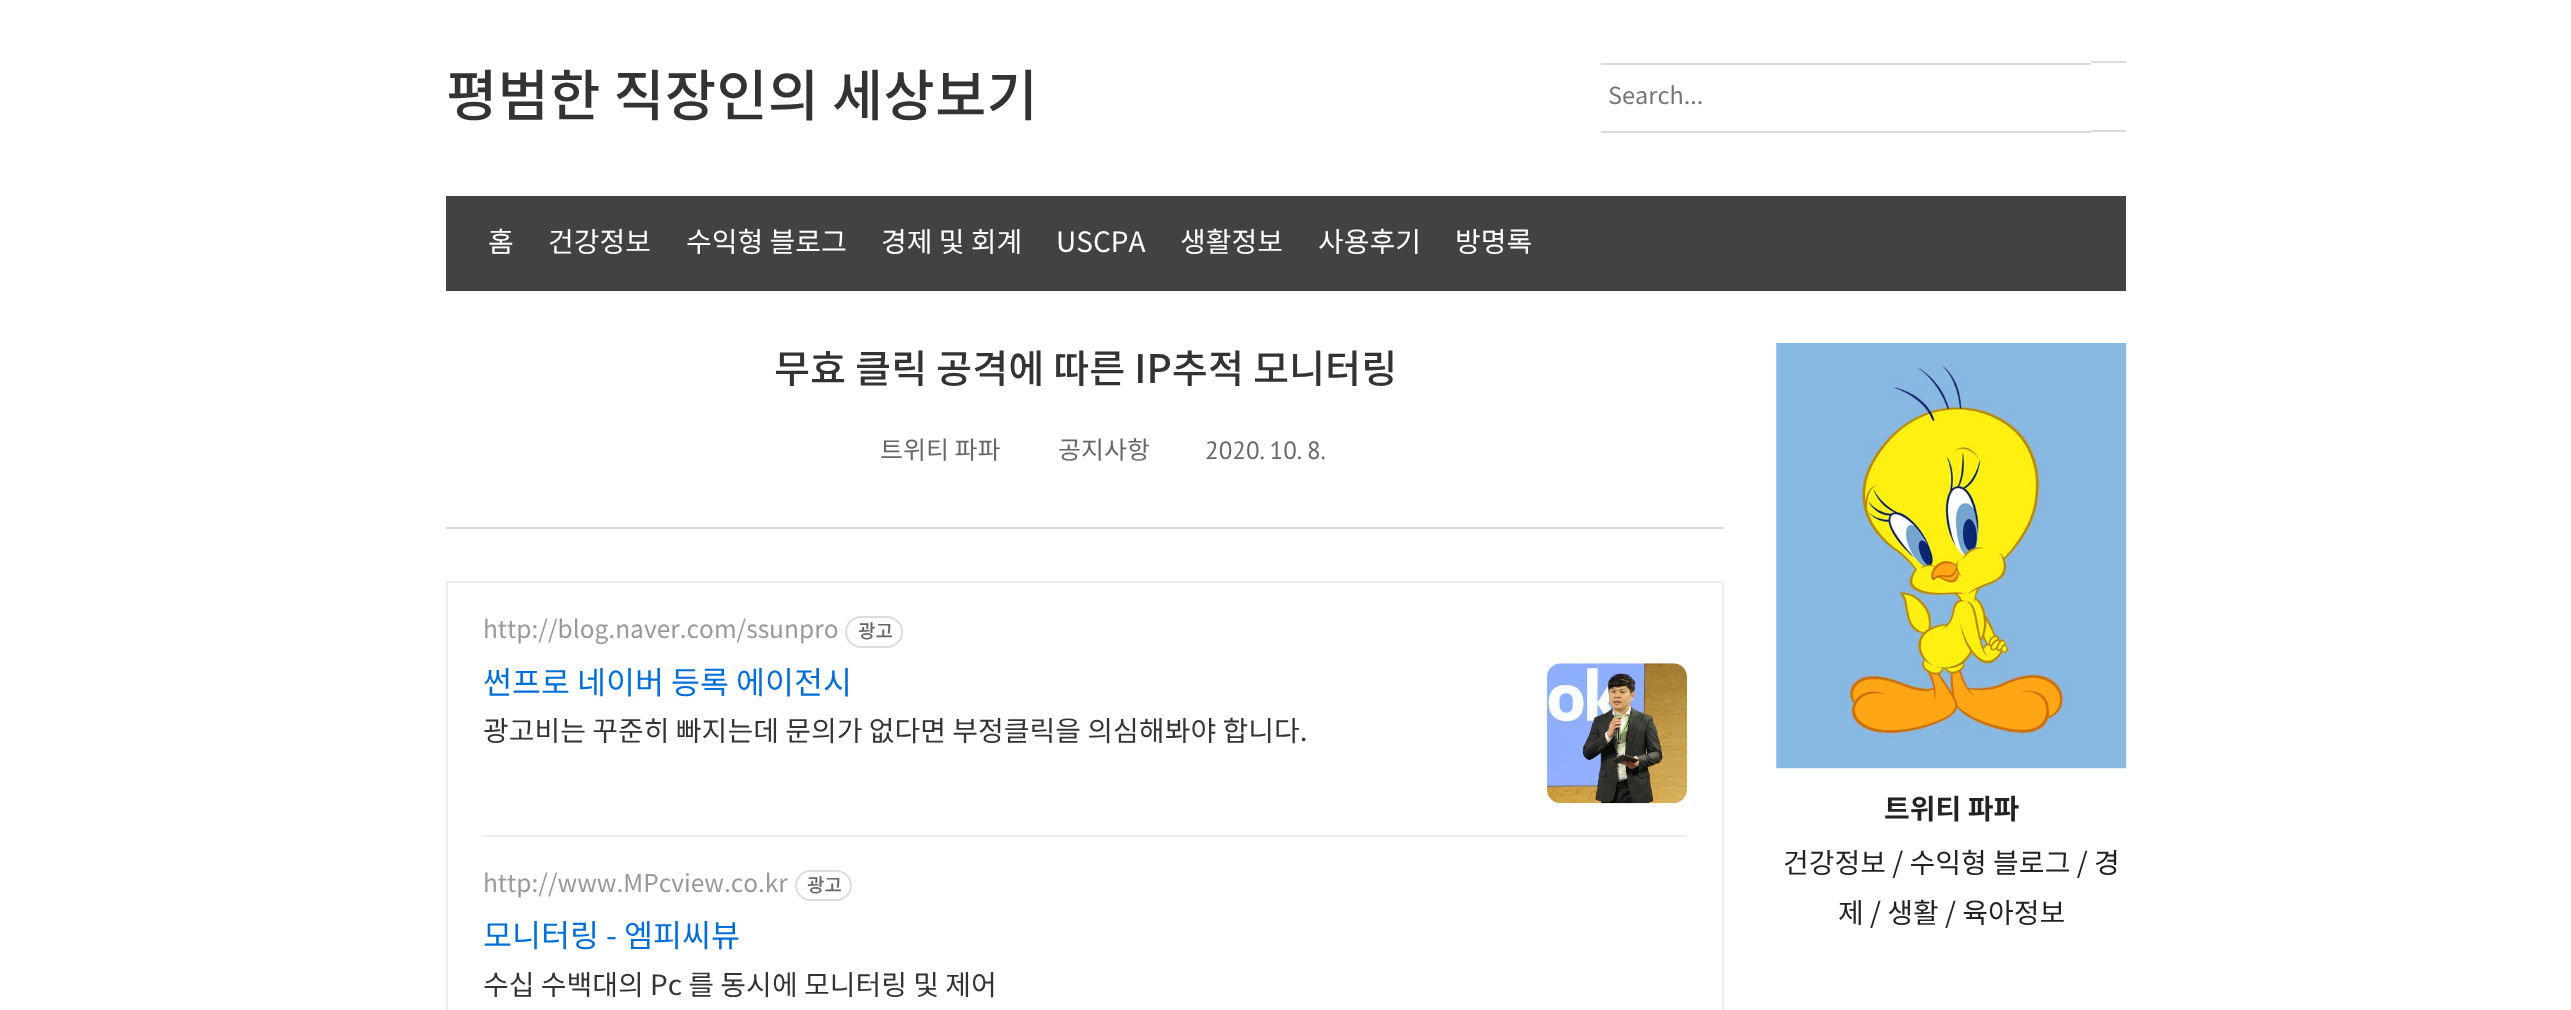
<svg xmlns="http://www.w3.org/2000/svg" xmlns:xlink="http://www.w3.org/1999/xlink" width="2571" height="1010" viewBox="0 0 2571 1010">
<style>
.cls-1{font:500 56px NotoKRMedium;fill:#333333}
.cls-2{font:23.5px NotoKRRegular;fill:#757575}
.cls-3{font:28px NotoKRRegular;fill:#ffffff}
.cls-4{font:500 39.25px NotoKRMedium;fill:#333333}
.cls-5{font:25px NotoKRRegular;fill:#666666}
.cls-6{font:25px PT Sans;fill:#666666}
.cls-7{font:24.5px NotoKRRegular;fill:#999999}
.cls-8{font:500 19px NotoKRMedium;fill:#666666}
.cls-9{font:31.5px NotoKRRegular;fill:#016dd7}
.cls-10{font:28px NotoKRRegular;fill:#333333}
.cls-11{font:bold 28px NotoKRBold;fill:#222222}
.cls-12{font:28px NotoKRRegular;fill:#222222}
</style>
<rect width="100%" height="100%" fill="#ffffff"/>
<rect fill="#dadada" x="1601" y="63" width="490" height="2"/>
<rect fill="#dadada" x="1601" y="131" width="490" height="2"/>
<rect fill="#dadada" x="2091" y="61" width="35" height="2"/>
<rect fill="#dadada" x="2091" y="130" width="35" height="2"/>
<rect fill="#424242" x="446" y="196" width="1680" height="95"/>
<rect fill="#dadada" x="446" y="527" width="1278" height="2"/>
<rect fill="none" stroke="#eeeeee" stroke-width="2" x="447" y="582" width="1276" height="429"/>
<rect fill="none" stroke="#dddddd" stroke-width="2" x="846" y="617" width="56" height="30" rx="15"/>
<image xlink:href="image0.png" x="1547" y="663" width="140" height="141"/>
<rect fill="#eeeeee" x="483" y="835" width="1204" height="2"/>
<rect fill="none" stroke="#dddddd" stroke-width="2" x="796" y="871" width="55" height="29" rx="14.5"/>
<image xlink:href="image1.png" x="1776" y="343" width="351" height="426"/>
<text class="cls-1" x="446" y="116">평범한 직장인의 세상보기</text>
<text class="cls-2" x="1608" y="104">Search...</text>
<text class="cls-3" x="488" y="252">홈</text>
<text class="cls-3" x="548" y="252">건강정보</text>
<text class="cls-3" x="686" y="252">수익형 블로그</text>
<text class="cls-3" x="881" y="252">경제 및 회계</text>
<text class="cls-3" x="1056" y="252">USCPA</text>
<text class="cls-3" x="1180" y="252">생활정보</text>
<text class="cls-3" x="1318" y="252">사용후기</text>
<text class="cls-3" x="1455" y="252">방명록</text>
<text class="cls-4" x="774" y="383">무효 클릭 공격에 따른 IP추적 모니터링</text>
<text class="cls-5" x="880" y="459">트위티 파파</text>
<text class="cls-5" x="1058" y="459">공지사항</text>
<text class="cls-6" x="1205" y="459">2020. 10. 8.</text>
<text class="cls-7" x="483" y="638">http://blog.naver.com/ssunpro</text>
<text class="cls-8" x="858" y="638">광고</text>
<text class="cls-9" x="483" y="694">썬프로 네이버 등록 에이전시</text>
<text class="cls-10" x="483" y="741">광고비는 꾸준히 빠지는데 문의가 없다면 부정클릭을 의심해봐야 합니다.</text>
<text class="cls-7" x="483" y="892">http://www.MPcview.co.kr</text>
<text class="cls-8" x="807" y="892">광고</text>
<text class="cls-9" x="483" y="947">모니터링 - 엠피씨뷰</text>
<text class="cls-10" x="483" y="995">수십 수백대의 Pc 를 동시에 모니터링 및 제어</text>
<text class="cls-11" x="1884" y="819">트위티 파파</text>
<text class="cls-12" x="1783" y="873">건강정보 / 수익형 블로그 / 경</text>
<text class="cls-12" x="1838" y="923">제 / 생활 / 육아정보</text>
</svg>
